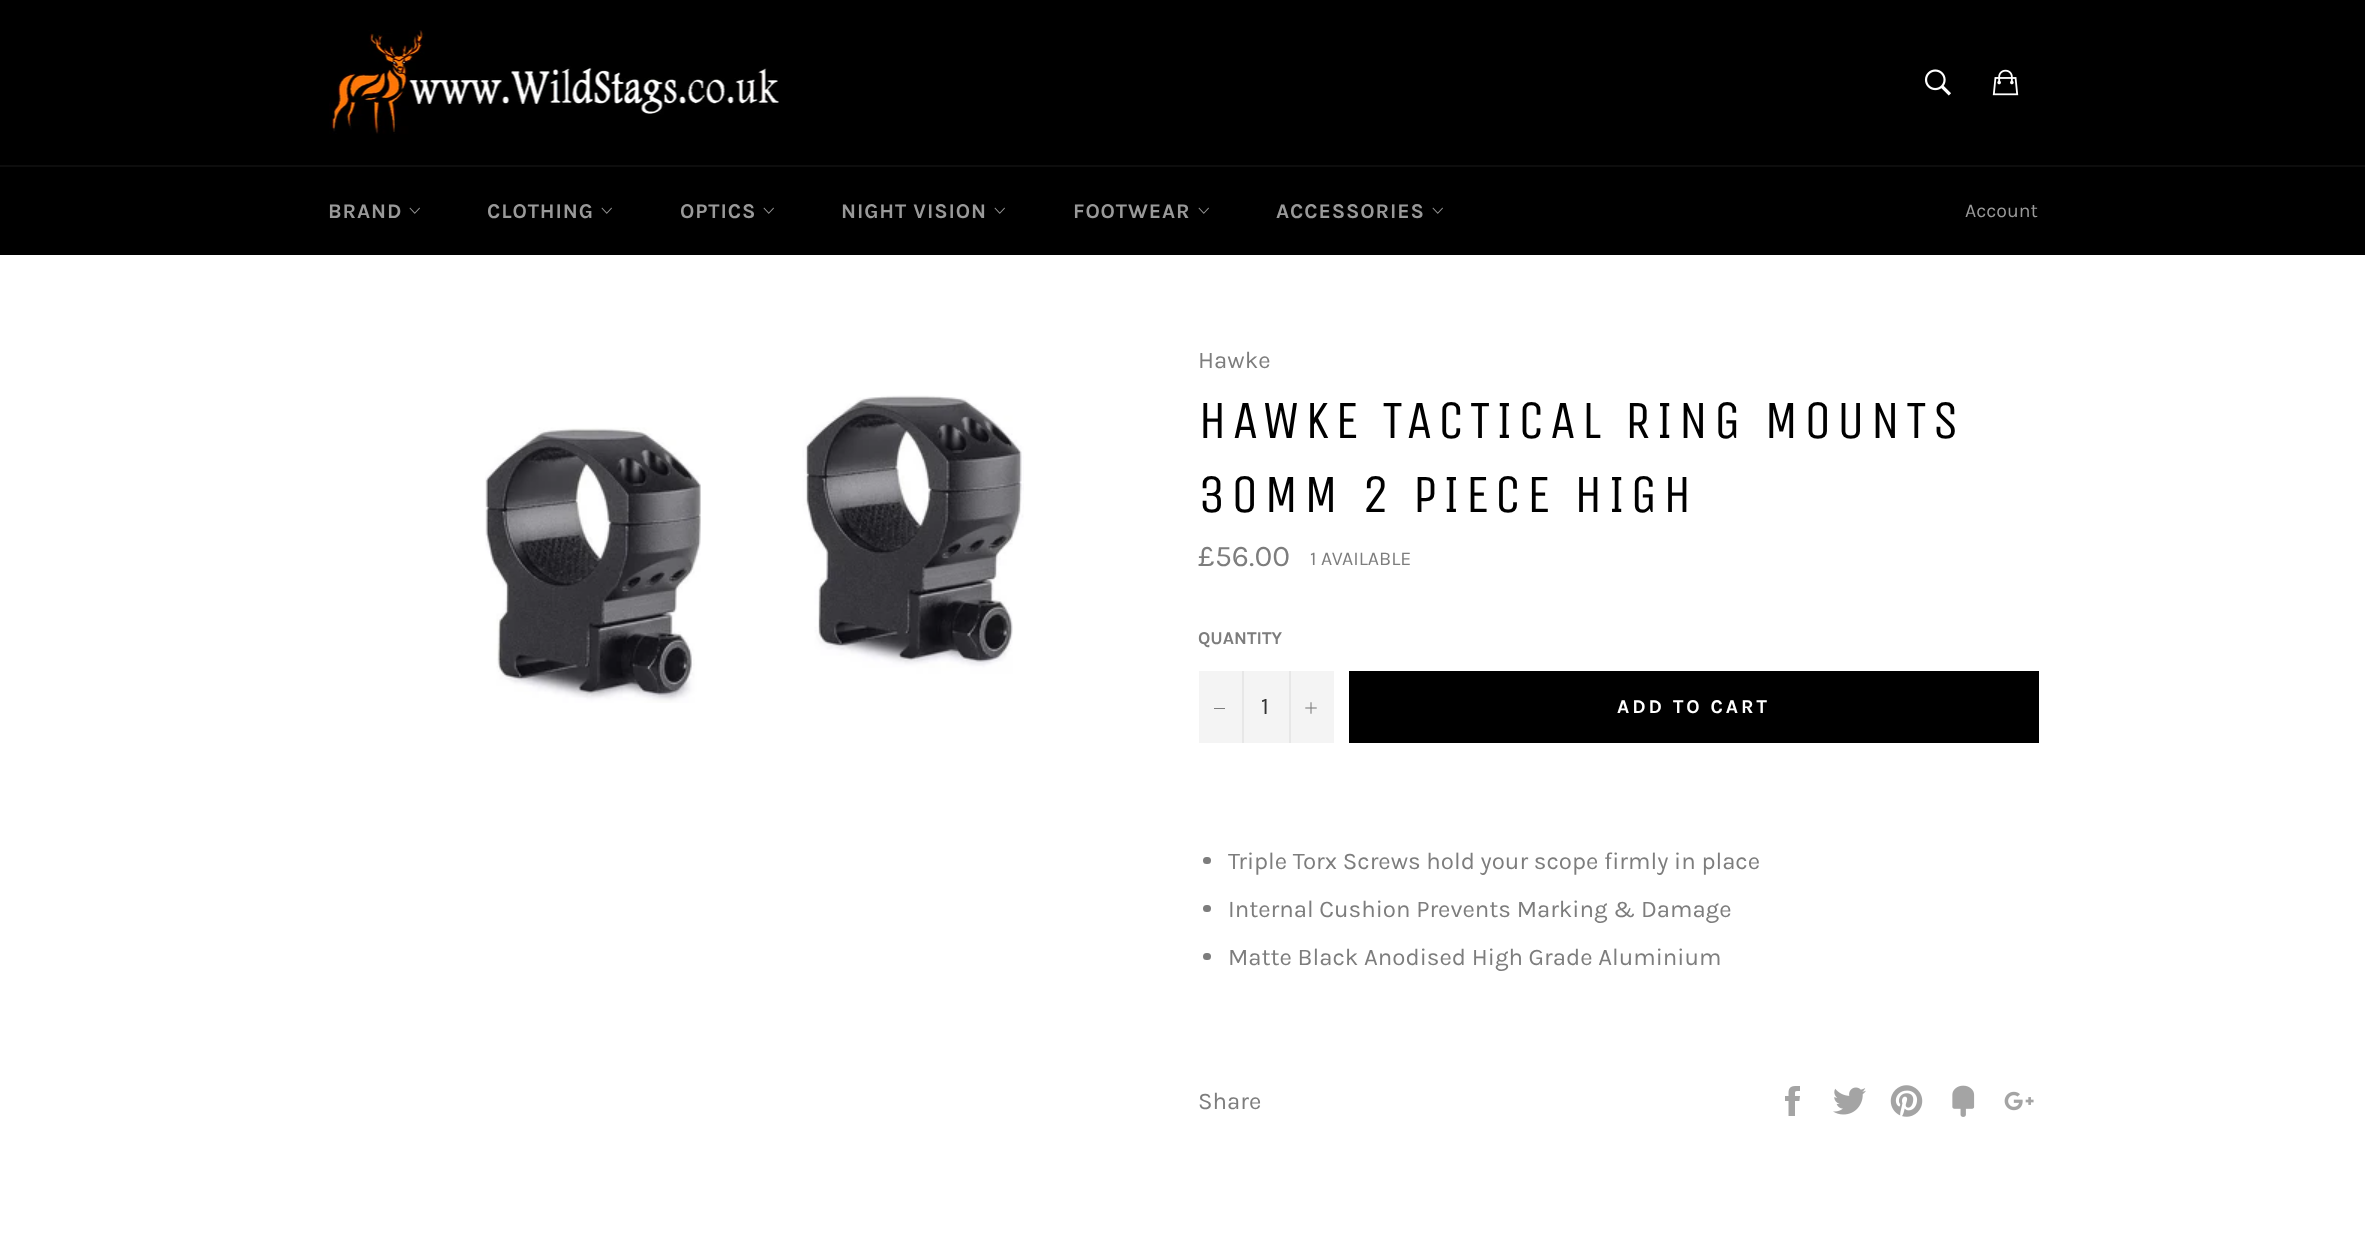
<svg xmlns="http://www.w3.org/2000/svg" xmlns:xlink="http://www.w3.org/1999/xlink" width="2365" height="1253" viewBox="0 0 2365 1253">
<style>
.cls-1{font:bold 21px Karla;letter-spacing:0.9px;fill:#999999}
.cls-2{font:19.5px Karla;fill:#999999}
.cls-3{font:24px Karla;fill:#7d7d7d}
.cls-4{font:54px Unica One;letter-spacing:5.4px;fill:#000000}
.cls-5{font:30px Karla;fill:#7d7d7d}
.cls-6{font:19.5px Karla;fill:#7d7d7d}
.cls-7{font:bold 18px Karla;fill:#7d7d7d}
.cls-8{font:24px Karla;fill:#333333}
.cls-9{font:bold 19.5px Karla;letter-spacing:3px;fill:#ffffff}
</style>
<rect width="100%" height="100%" fill="#ffffff"/>
<rect fill="#000000" x="0" y="0" width="2365" height="165"/>
<image xlink:href="image0.png" x="329" y="30" width="450" height="104"/>
<image xlink:href="image1.png" x="1924" y="69" width="27" height="27"/>
<image xlink:href="image2.png" x="1992" y="69" width="27" height="27"/>
<rect fill="#000000" x="0" y="167" width="2365" height="88"/>
<rect fill="#0d0d0d" x="0" y="165" width="2365" height="2"/>
<image xlink:href="image3.png" x="409" y="207" width="11" height="7"/>
<image xlink:href="image3.png" x="601" y="207" width="11" height="7"/>
<image xlink:href="image3.png" x="763" y="207" width="11" height="7"/>
<image xlink:href="image3.png" x="994" y="207" width="11" height="7"/>
<image xlink:href="image3.png" x="1198" y="207" width="11" height="7"/>
<image xlink:href="image3.png" x="1432" y="207" width="11" height="7"/>
<image xlink:href="image4.png" x="485" y="395" width="539" height="308"/>
<rect fill="#f4f4f4" x="1199" y="671" width="135" height="72"/>
<rect fill="#e7e7e7" x="1242" y="671" width="2" height="72"/>
<rect fill="#7d7d7d" x="1214" y="708" width="11" height="1"/>
<rect fill="#e7e7e7" x="1289" y="671" width="2" height="72"/>
<image xlink:href="image5.png" x="1305" y="702" width="12" height="12"/>
<rect fill="#000000" x="1349" y="671" width="690" height="72"/>
<rect fill="#7d7d7d" x="1203" y="857" width="8" height="7" rx="3.5"/>
<rect fill="#7d7d7d" x="1203" y="905" width="8" height="7" rx="3.5"/>
<rect fill="#7d7d7d" x="1203" y="953" width="8" height="7" rx="3.5"/>
<image xlink:href="image6.png" x="1785" y="1086" width="15" height="30"/>
<image xlink:href="image7.png" x="1833" y="1087" width="33" height="28"/>
<image xlink:href="image8.png" x="1890" y="1085" width="33" height="32"/>
<image xlink:href="image9.png" x="1952" y="1085" width="23" height="32"/>
<image xlink:href="image10.png" x="2004" y="1091" width="30" height="20"/>
<text class="cls-1" x="328" y="218">BRAND</text>
<text class="cls-1" x="487" y="218">CLOTHING</text>
<text class="cls-1" x="680" y="218">OPTICS</text>
<text class="cls-1" x="841" y="218">NIGHT VISION</text>
<text class="cls-1" x="1073" y="218">FOOTWEAR</text>
<text class="cls-1" x="1276" y="218">ACCESSORIES</text>
<text class="cls-2" x="1965" y="217">Account</text>
<text class="cls-3" x="1198" y="368">Hawke</text>
<text class="cls-4"><tspan x="1198" y="438">HAWKE TACTICAL RING MOUNTS</tspan><tspan x="1198" y="512">30MM 2 PIECE HIGH</tspan></text>
<text class="cls-5" x="1198" y="566">£56.00</text>
<text class="cls-6" x="1310" y="565">1 AVAILABLE</text>
<text class="cls-7" x="1198" y="644">QUANTITY</text>
<text class="cls-8" x="1261" y="714">1</text>
<text class="cls-9" x="1617" y="713">ADD TO CART</text>
<text class="cls-3" x="1228" y="869">Triple Torx Screws hold your scope firmly in place</text>
<text class="cls-3" x="1228" y="917">Internal Cushion Prevents Marking &amp; Damage</text>
<text class="cls-3" x="1228" y="965">Matte Black Anodised High Grade Aluminium</text>
<text class="cls-3" x="1198" y="1109">Share</text>
</svg>
